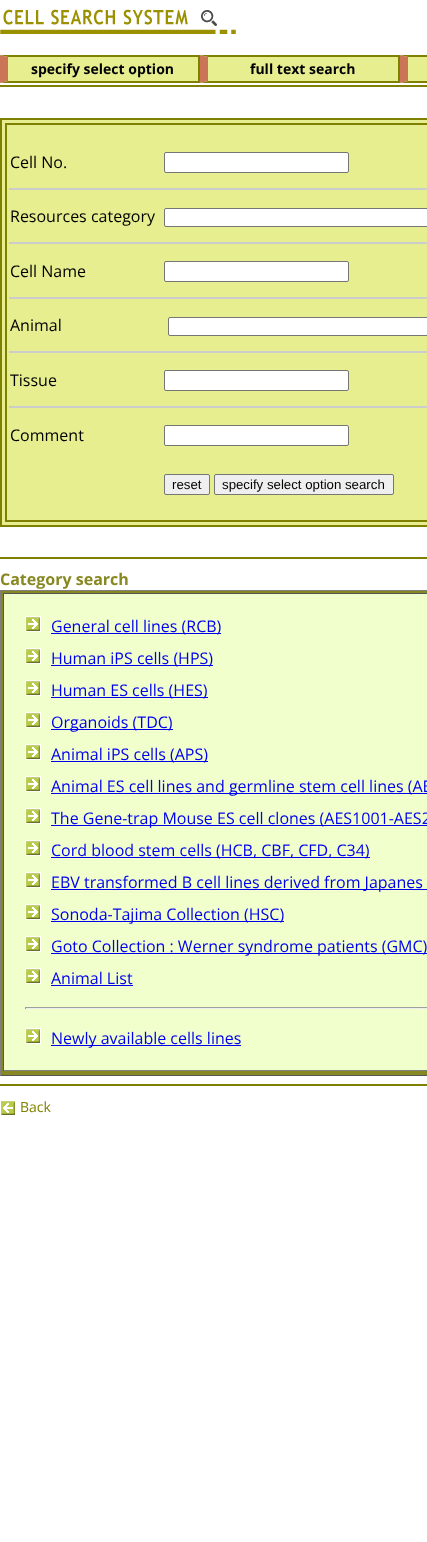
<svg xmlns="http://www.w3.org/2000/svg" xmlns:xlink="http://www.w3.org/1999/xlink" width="427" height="1542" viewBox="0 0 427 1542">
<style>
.cls-1{font:bold 14px Open Sans;fill:#000000}
.cls-2{font:16px Open Sans;fill:#000000}
.cls-3{font:13.25px Liberation Sans;fill:#000000}
.cls-4{font:bold 16px Open Sans;fill:#888822}
.cls-5{font:16px Open Sans;fill:#0000ee}
.cls-6{font:14px Open Sans;fill:#808000}
</style>
<rect width="100%" height="100%" fill="#ffffff"/>
<image xlink:href="image0.png" x="0" y="9" width="236" height="25"/>
<rect fill="#e6ee90" x="8" y="57" width="190" height="24"/>
<path fill="#808000" d="M0 55H200L198 57H8Z"/>
<rect fill="#808000" x="198" y="55" width="2" height="28"/>
<path fill="#808000" d="M200 83H0L8 81H198Z"/>
<path fill="#c97556" d="M0 83V55L8 57V81Z"/>
<rect fill="#e6ee90" x="208" y="57" width="190" height="24"/>
<path fill="#808000" d="M200 55H400L398 57H208Z"/>
<rect fill="#808000" x="398" y="55" width="2" height="28"/>
<path fill="#808000" d="M400 83H200L208 81H398Z"/>
<path fill="#c97556" d="M200 83V55L208 57V81Z"/>
<rect fill="#e6ee90" x="408" y="57" width="19" height="24"/>
<path fill="#808000" d="M400 55H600L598 57H408ZM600 83H400L408 81H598Z"/>
<path fill="#c97556" d="M400 83V55L408 57V81Z"/>
<rect fill="#808000" x="0" y="85" width="427" height="2"/>
<rect fill="#e6ee90" stroke="#808000" stroke-width="2" x="1" y="119" width="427" height="407"/>
<rect fill="none" stroke="#808000" stroke-width="2" x="6" y="124" width="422" height="397"/>
<rect fill="#ffffff" stroke="#767676" x="164.5" y="152.5" width="184" height="20" rx="1.5"/>
<rect fill="#cccccc" x="9" y="188" width="418" height="2"/>
<rect fill="#ffffff" stroke="#767676" x="164.5" y="208.5" width="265" height="18" rx="1.5"/>
<rect fill="#cccccc" x="9" y="242" width="418" height="2"/>
<rect fill="#ffffff" stroke="#767676" x="164.5" y="261.5" width="184" height="20" rx="1.5"/>
<rect fill="#cccccc" x="9" y="297" width="418" height="2"/>
<rect fill="#ffffff" stroke="#767676" x="168.5" y="317.5" width="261" height="18" rx="1.5"/>
<rect fill="#cccccc" x="9" y="351" width="418" height="2"/>
<rect fill="#ffffff" stroke="#767676" x="164.5" y="370.5" width="184" height="20" rx="1.5"/>
<rect fill="#cccccc" x="9" y="406" width="418" height="2"/>
<rect fill="#ffffff" stroke="#767676" x="164.5" y="425.5" width="184" height="20" rx="1.5"/>
<rect fill="#efefef" stroke="#767676" x="164.5" y="474.5" width="45" height="20" rx="1.5"/>
<rect fill="#efefef" stroke="#767676" x="214.5" y="474.5" width="179" height="20" rx="1.5"/>
<rect fill="#808000" x="0" y="557" width="427" height="2"/>
<rect fill="#888822" x="1" y="591" width="426" height="484"/>
<rect fill="#808080" x="0" y="590" width="427" height="1"/>
<rect fill="#555555" x="0" y="1075" width="427" height="1"/>
<rect fill="#808080" x="0" y="590" width="1" height="486"/>
<rect fill="#f0ffcc" x="4" y="594" width="423" height="476"/>
<rect fill="#555555" x="3" y="593" width="424" height="1"/>
<rect fill="#808080" x="3" y="1070" width="424" height="1"/>
<rect fill="#555555" x="3" y="593" width="1" height="478"/>
<image xlink:href="image1.png" x="25" y="616" width="16" height="16"/>
<rect fill="#0000ee" x="51" y="633" width="170" height="1"/>
<image xlink:href="image1.png" x="25" y="648" width="16" height="16"/>
<rect fill="#0000ee" x="51" y="665" width="162" height="1"/>
<image xlink:href="image1.png" x="25" y="680" width="16" height="16"/>
<rect fill="#0000ee" x="51" y="697" width="157" height="1"/>
<image xlink:href="image1.png" x="25" y="712" width="16" height="16"/>
<rect fill="#0000ee" x="51" y="729" width="122" height="1"/>
<image xlink:href="image1.png" x="25" y="744" width="16" height="16"/>
<rect fill="#0000ee" x="51" y="761" width="157" height="1"/>
<image xlink:href="image1.png" x="25" y="776" width="16" height="16"/>
<rect fill="#0000ee" x="51" y="793" width="376" height="1"/>
<image xlink:href="image1.png" x="25" y="808" width="16" height="16"/>
<rect fill="#0000ee" x="51" y="825" width="376" height="1"/>
<image xlink:href="image1.png" x="25" y="840" width="16" height="16"/>
<rect fill="#0000ee" x="51" y="857" width="319" height="1"/>
<image xlink:href="image1.png" x="25" y="872" width="16" height="16"/>
<rect fill="#0000ee" x="51" y="889" width="376" height="1"/>
<image xlink:href="image1.png" x="25" y="904" width="16" height="16"/>
<rect fill="#0000ee" x="51" y="921" width="233" height="1"/>
<image xlink:href="image1.png" x="25" y="936" width="16" height="16"/>
<rect fill="#0000ee" x="51" y="953" width="376" height="1"/>
<image xlink:href="image1.png" x="25" y="968" width="16" height="16"/>
<rect fill="#0000ee" x="51" y="985" width="82" height="1"/>
<rect fill="#9f9f9f" x="25" y="1007" width="402" height="1"/>
<rect fill="#eeeeee" x="25" y="1008" width="402" height="1"/>
<rect fill="#9f9f9f" x="25" y="1007" width="1" height="2"/>
<image xlink:href="image1.png" x="25" y="1028" width="16" height="16"/>
<rect fill="#0000ee" x="51" y="1045" width="190" height="1"/>
<rect fill="#808000" x="0" y="1084" width="427" height="2"/>
<image xlink:href="image2.png" x="1" y="1101" width="14" height="14"/>
<text class="cls-1" x="31" y="74">specify select option</text>
<text class="cls-1" x="250" y="74">full text search</text>
<text class="cls-2" x="10" y="168">Cell No.</text>
<text class="cls-2" x="10" y="222">Resources category</text>
<text class="cls-2" x="10" y="277">Cell Name</text>
<text class="cls-2" x="10" y="331">Animal</text>
<text class="cls-2" x="10" y="386">Tissue</text>
<text class="cls-2" x="10" y="441">Comment</text>
<text class="cls-3" x="172" y="489">reset</text>
<text class="cls-3" x="222" y="489">specify select option search</text>
<text class="cls-4" x="0" y="585">Category search</text>
<text class="cls-5" x="51" y="632">General cell lines (RCB)</text>
<text class="cls-5" x="51" y="664">Human iPS cells (HPS)</text>
<text class="cls-5" x="51" y="696">Human ES cells (HES)</text>
<text class="cls-5" x="51" y="728">Organoids (TDC)</text>
<text class="cls-5" x="51" y="760">Animal iPS cells (APS)</text>
<text class="cls-5" x="51" y="792">Animal ES cell lines and germline stem cell lines (AE</text>
<text class="cls-5" x="51" y="824">The Gene-trap Mouse ES cell clones (AES1001-AES2</text>
<text class="cls-5" x="51" y="856">Cord blood stem cells (HCB, CBF, CFD, C34)</text>
<text class="cls-5" x="51" y="888">EBV transformed B cell lines derived from Japanes</text>
<text class="cls-5" x="51" y="920">Sonoda-Tajima Collection (HSC)</text>
<text class="cls-5" x="51" y="952">Goto Collection : Werner syndrome patients (GMC)</text>
<text class="cls-5" x="51" y="984">Animal List</text>
<text class="cls-5" x="51" y="1044">Newly available cells lines</text>
<text class="cls-6" x="20" y="1112">Back</text>
</svg>
